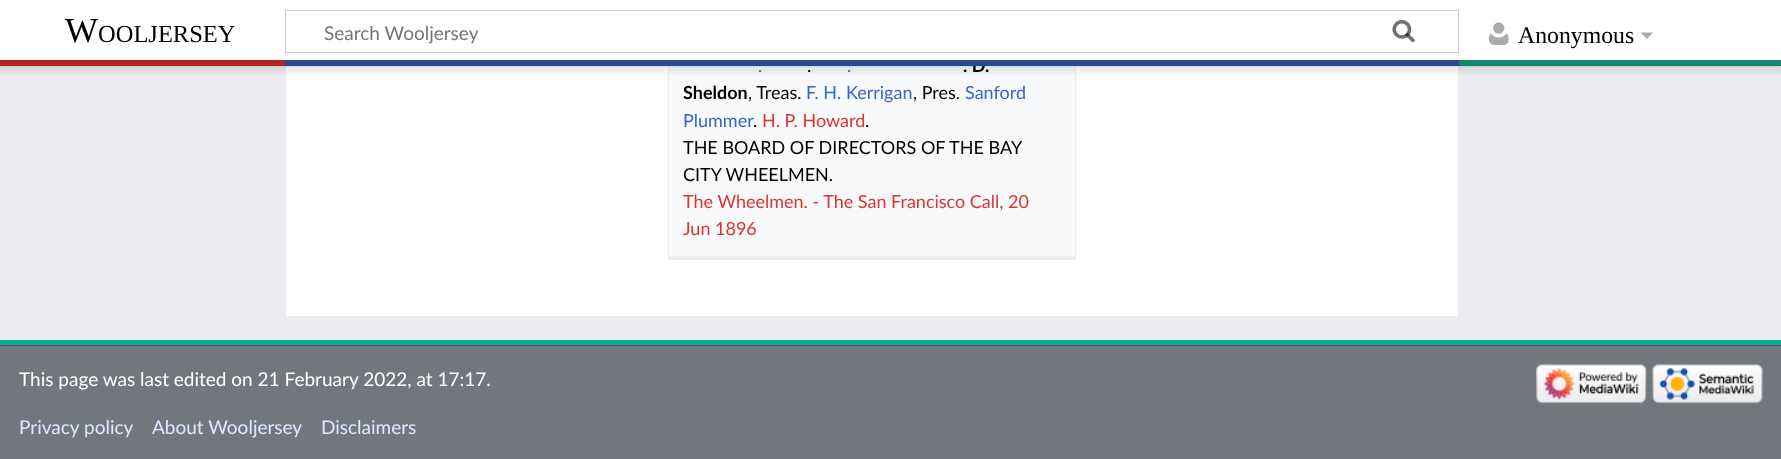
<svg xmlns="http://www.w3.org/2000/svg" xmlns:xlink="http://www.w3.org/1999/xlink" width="1781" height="459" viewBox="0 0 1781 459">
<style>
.cls-1{font:18px Lato;fill:#3366cc}
.cls-2{font:18px Lato;fill:#000000}
.cls-3{font:bold 18px Lato;fill:#000000}
.cls-4{font:19px Lato;fill:#757575}
.cls-5{font:23.75px Liberation Serif;fill:#000000}
.cls-6{font:24.5px Liberation Serif;fill:#000000}
.cls-7{font:35px Liberation Serif;fill:#000000}
.cls-8{font:18px Lato;fill:#dd3333}
.cls-9{font:19px Lato;fill:#ffffff}
.cls-10{font:19px Lato;fill:#dbeaff}
</style>
<rect width="100%" height="100%" fill="#72777d"/>
<rect fill="#eaecf0" x="0" y="66" width="1781" height="274"/>
<rect fill="#ffffff" x="286" y="66" width="1172" height="250"/>
<rect fill="#f8f9fa" x="669" y="66" width="406" height="190"/>
<rect fill="#eaecf0" x="1075" y="66" width="1" height="194"/>
<rect fill="#eaecf0" x="668" y="256" width="408" height="4"/>
<rect fill="#eaecf0" x="668" y="66" width="1" height="194"/>
<rect fill="#000000" fill-opacity="0.2" filter="blur(1px)" x="0" y="60" width="1781" height="6"/>
<rect fill="#000000" fill-opacity="0.07" filter="blur(2px)" x="-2" y="61" width="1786" height="12"/>
<rect fill="#b32424" x="0" y="60" width="285" height="6"/>
<rect fill="#14866d" x="1459" y="60" width="322" height="6"/>
<rect fill="#00af89" x="0" y="340" width="1781" height="5"/>
<rect fill="#54595d" x="0" y="345" width="1781" height="1"/>
<image xlink:href="image3.png" x="1536" y="364" width="111" height="40"/>
<image xlink:href="image4.png" x="1652" y="364" width="111" height="40"/>
<text class="cls-1" x="758" y="72">.</text>
<text class="cls-2" x="807" y="72">.</text>
<text class="cls-1" x="847" y="72">.</text>
<text class="cls-3" x="963" y="72">. D.</text>
<rect fill="#ffffff" x="0" y="0" width="1781" height="60"/>
<rect fill="none" stroke="#c8ccd1" x="285.5" y="10.5" width="1173" height="42"/>
<image xlink:href="image0.png" x="1392" y="20" width="23" height="23"/>
<image xlink:href="image1.png" x="1392" y="20" width="23" height="23"/>
<text class="cls-4" x="324" y="40">Search Wooljersey</text>
<text class="cls-5" x="1518" y="43">Anonymous</text>
<path fill="#ababab" d="M1653 32.5L1647 39L1640.5 32.5Z"/>
<image xlink:href="image2.png" x="1488" y="22" width="21" height="23"/>
<text class="cls-6" x="98" y="42">OOLJERSEY</text>
<text class="cls-7" x="65" y="42">W</text>
<rect fill="#2a4b8d" x="285" y="60" width="1174" height="6"/>
<text class="cls-3" x="683" y="99">Sheldon</text>
<text class="cls-2" x="748" y="99">, Treas.</text>
<text class="cls-1" x="806" y="99">F. H. Kerrigan</text>
<text class="cls-2" x="913" y="99">, Pres.</text>
<text class="cls-1" x="965" y="99">Sanford</text>
<text class="cls-1" x="683" y="127">Plummer</text>
<text class="cls-2" x="753" y="127">.</text>
<text class="cls-8" x="762" y="127">H. P. Howard</text>
<text class="cls-2" x="865" y="127">.</text>
<text class="cls-2"><tspan x="683" y="154">THE BOARD OF DIRECTORS OF THE BAY</tspan><tspan x="683" y="181">CITY WHEELMEN.</tspan></text>
<text class="cls-8"><tspan x="683" y="208">The Wheelmen. - The San Francisco Call, 20</tspan><tspan x="683" y="235">Jun 1896</tspan></text>
<text class="cls-9" x="19" y="386">This page was last edited on 21 February 2022, at 17:17.</text>
<text class="cls-10" x="19" y="434">Privacy policy</text>
<text class="cls-10" x="152" y="434">About Wooljersey</text>
<text class="cls-10" x="321" y="434">Disclaimers</text>
</svg>
